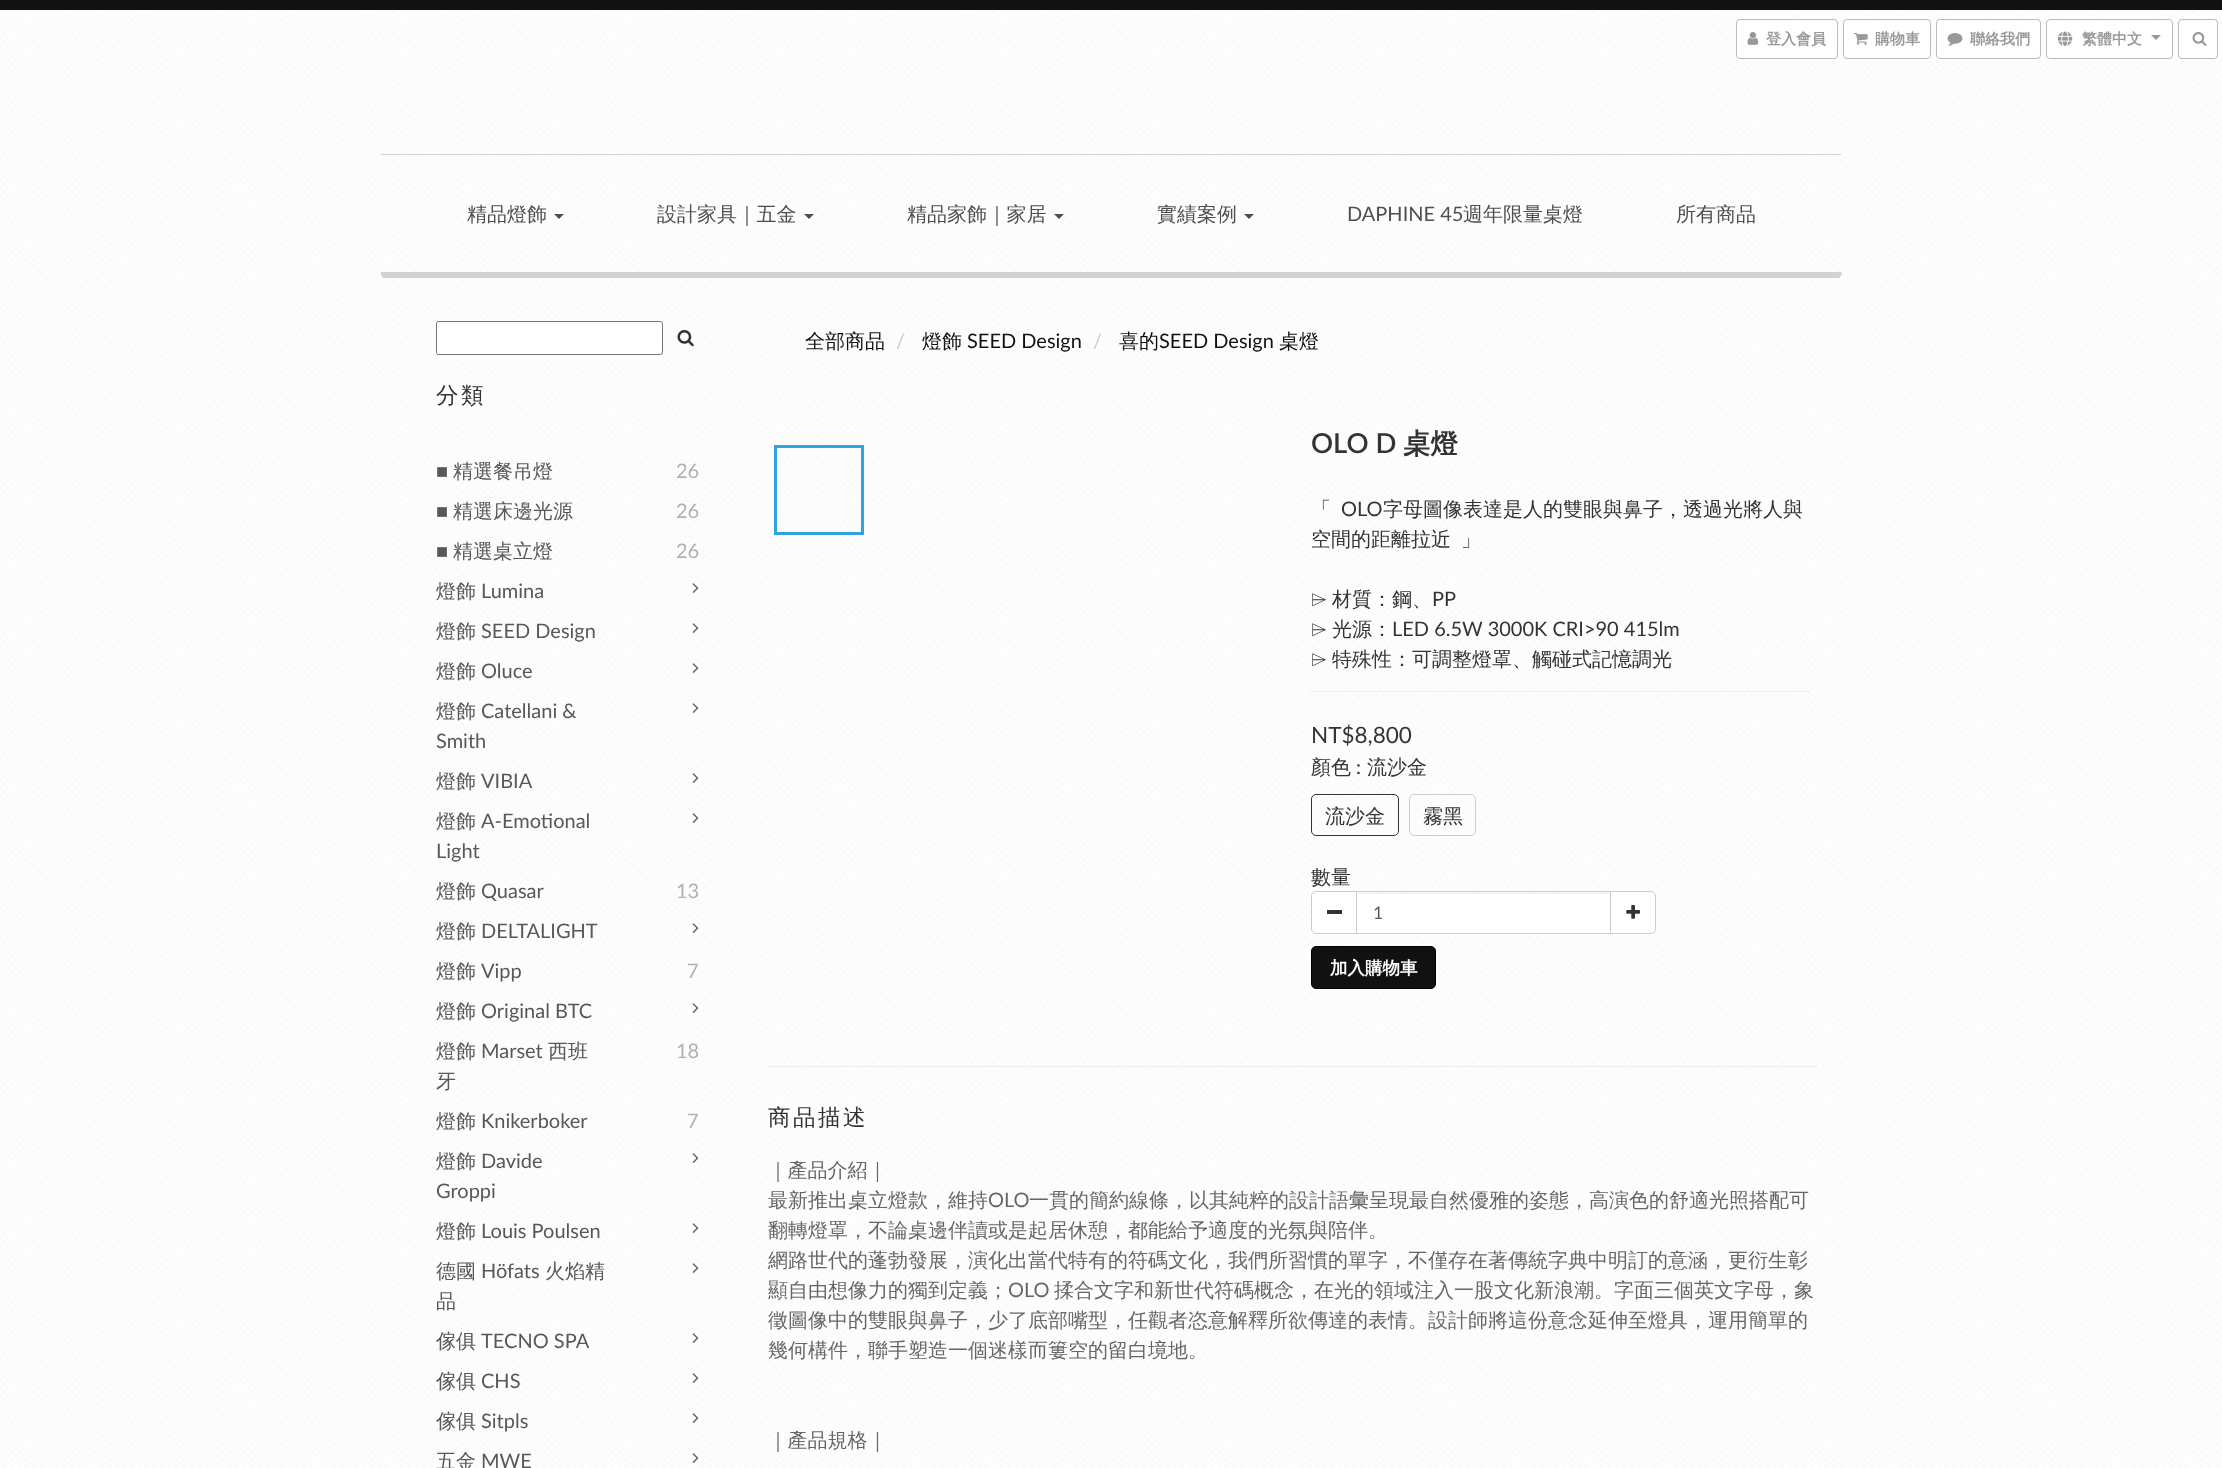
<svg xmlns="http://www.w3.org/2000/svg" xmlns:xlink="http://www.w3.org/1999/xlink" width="2222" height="1468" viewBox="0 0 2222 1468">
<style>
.cls-1{font:bold 15px WenQuanYi Zen Hei;fill:#999999}
.cls-2{font:500 20px WenQuanYi Zen Hei;fill:#4e4e4e}
.cls-3{font:20px Lato;fill:#4e4e4e}
.cls-4{font:500 22.5px WenQuanYi Zen Hei;letter-spacing:2.5px;fill:#333333}
.cls-5{font:20px Liberation Sans;fill:#585858}
.cls-6{font:500 20px WenQuanYi Zen Hei;fill:#585858}
.cls-7{font:20px Lato;fill:#b1b1b1}
.cls-8{font:20px Lato;fill:#585858}
.cls-9{font:500 20px WenQuanYi Zen Hei;fill:#111111}
.cls-10{font:20px Lato;fill:#cccccc}
.cls-11{font:20px Lato;fill:#111111}
.cls-12{font:600 27.5px Lato;fill:#333333}
.cls-13{font:bold 27.5px WenQuanYi Zen Hei;fill:#333333}
.cls-14{font:500 20px WenQuanYi Zen Hei;fill:#333333}
.cls-15{font:20px Lato;fill:#333333}
.cls-16{font:20px FreeSerif;fill:#333333}
.cls-17{font:22.5px Lato;fill:#333333}
.cls-18{font:17.5px Lato;fill:#585858}
.cls-19{font:bold 17.5px WenQuanYi Zen Hei;fill:#ffffff}
.cls-20{font:500 20px WenQuanYi Zen Hei;fill:#666666}
.cls-21{font:20px Lato;fill:#666666}
</style>
<rect width="100%" height="100%" fill="#ffffff"/>
<image xlink:href="image0.png" x="0" y="10" width="2222" height="1458"/>
<rect fill="#ffffff" fill-opacity="0.8" stroke="#bbbbbb" x="1736.5" y="19.5" width="101" height="39" rx="3.5"/>
<image xlink:href="image1.png" x="1747" y="32" width="12" height="13"/>
<rect fill="#ffffff" fill-opacity="0.8" stroke="#bbbbbb" x="1843.5" y="19.5" width="87" height="39" rx="3.5"/>
<image xlink:href="image2.png" x="1853" y="33" width="15" height="12"/>
<rect fill="#ffffff" fill-opacity="0.8" stroke="#bbbbbb" x="1936.5" y="19.5" width="104" height="39" rx="3.5"/>
<image xlink:href="image3.png" x="1947" y="33" width="16" height="13"/>
<rect fill="#ffffff" fill-opacity="0.8" stroke="#bbbbbb" x="2046.5" y="19.5" width="126" height="39" rx="3.5"/>
<image xlink:href="image4.png" x="2058" y="31" width="15" height="15"/>
<path fill="#999999" d="M2151 35H2161L2156 40Z"/>
<rect fill="#ffffff" fill-opacity="0.8" stroke="#bbbbbb" x="2178.5" y="19.5" width="39" height="39" rx="3.5"/>
<image xlink:href="image5.png" x="2192" y="32" width="15" height="14"/>
<rect fill="#111111" x="0" y="0" width="2222" height="10"/>
<path fill="#d2d2d2" d="M383 278L381 275V272H1841L1842 274L1839 278Z"/>
<rect fill="#d2d2d2" x="381" y="154" width="1460" height="1"/>
<path fill="#4e4e4e" d="M554 214H564L559 219Z"/>
<path fill="#4e4e4e" d="M804 214H814L809 219Z"/>
<path fill="#4e4e4e" d="M1054 214H1064L1059 219Z"/>
<path fill="#4e4e4e" d="M1244 214H1254L1249 219Z"/>
<rect fill="#ffffff" stroke="#767676" x="436.5" y="321.5" width="226" height="33" rx="2"/>
<image xlink:href="image6.png" x="677" y="330" width="17" height="17"/>
<image xlink:href="image7.png" x="692" y="583" width="7" height="10"/>
<image xlink:href="image8.png" x="692" y="623" width="7" height="10"/>
<image xlink:href="image9.png" x="692" y="663" width="7" height="10"/>
<image xlink:href="image10.png" x="692" y="703" width="7" height="10"/>
<image xlink:href="image11.png" x="692" y="773" width="7" height="10"/>
<image xlink:href="image9.png" x="692" y="813" width="7" height="10"/>
<image xlink:href="image11.png" x="692" y="923" width="7" height="10"/>
<image xlink:href="image10.png" x="692" y="1003" width="7" height="10"/>
<image xlink:href="image10.png" x="692" y="1153" width="7" height="10"/>
<image xlink:href="image11.png" x="692" y="1223" width="7" height="10"/>
<image xlink:href="image9.png" x="692" y="1263" width="7" height="10"/>
<image xlink:href="image7.png" x="692" y="1333" width="7" height="10"/>
<image xlink:href="image11.png" x="692" y="1373" width="7" height="10"/>
<image xlink:href="image9.png" x="692" y="1413" width="7" height="10"/>
<image xlink:href="image10.png" x="692" y="1453" width="7" height="10"/>
<rect fill="none" stroke="#30a4e1" stroke-width="3" x="775.5" y="446.5" width="87" height="87"/>
<rect fill="#eeeeee" x="1311" y="691" width="500" height="1"/>
<rect fill="none" stroke="#333333" x="1311.5" y="794.5" width="87" height="41" rx="4.5"/>
<rect fill="none" stroke="#cccccc" x="1409.5" y="794.5" width="66" height="41" rx="4.5"/>
<path fill="#ffffff" stroke="#cccccc" d="M1316 891.5H1357.5V933.5H1316C1313.5 933.5 1311.5 931.5 1311.5 929V896C1311.5 893.5 1313.5 891.5 1316 891.5Z"/>
<rect fill="#333333" x="1327" y="910" width="15" height="4"/>
<rect fill="#ffffff" x="1357" y="892" width="253" height="41"/>
<rect fill="#ececec" x="1358" y="893" width="252" height="1"/>
<rect fill="none" stroke="#cccccc" x="1356.5" y="891.5" width="254" height="42"/>
<path fill="#ffffff" stroke="#cccccc" d="M1610.5 891.5H1651C1653.5 891.5 1655.5 893.5 1655.5 896V929C1655.5 931.5 1653.5 933.5 1651 933.5H1610.5Z"/>
<image xlink:href="image12.png" x="1626" y="905" width="14" height="14"/>
<rect fill="#111111" stroke="#000000" x="1311.5" y="946.5" width="124" height="42" rx="4.5"/>
<rect fill="#eeeeee" x="768" y="1066" width="1050" height="1"/>
<text class="cls-1" x="1766" y="44">登入會員</text>
<text class="cls-1" x="1875" y="44">購物車</text>
<text class="cls-1" x="1970" y="44">聯絡我們</text>
<text class="cls-1" x="2082" y="44">繁體中文</text>
<text class="cls-2" x="467" y="221">精品燈飾</text>
<text class="cls-2" x="657" y="221">設計家具｜五金</text>
<text class="cls-2" x="907" y="221">精品家飾｜家居</text>
<text class="cls-2" x="1157" y="221">實績案例</text>
<text class="cls-3" x="1347" y="221">DAPHINE 45</text>
<text class="cls-2" x="1463" y="221">週年限量桌燈</text>
<text class="cls-2" x="1676" y="221">所有商品</text>
<text class="cls-4" x="436" y="403">分類</text>
<text class="cls-5" x="436" y="478">■</text>
<text class="cls-6" x="453" y="478">精選餐吊燈</text>
<text class="cls-7" x="676" y="478">26</text>
<text class="cls-5" x="436" y="518">■</text>
<text class="cls-6" x="453" y="518">精選床邊光源</text>
<text class="cls-7" x="676" y="518">26</text>
<text class="cls-5" x="436" y="558">■</text>
<text class="cls-6" x="453" y="558">精選桌立燈</text>
<text class="cls-7" x="676" y="558">26</text>
<text class="cls-6" x="436" y="598">燈飾</text>
<text class="cls-8" x="481" y="598">Lumina</text>
<text class="cls-6" x="436" y="638">燈飾</text>
<text class="cls-8" x="481" y="638">SEED Design</text>
<text class="cls-6" x="436" y="678">燈飾</text>
<text class="cls-8" x="481" y="678">Oluce</text>
<text class="cls-6" x="436" y="718">燈飾</text>
<text class="cls-8" x="481" y="718">Catellani &amp;</text>
<text class="cls-8" x="436" y="748">Smith</text>
<text class="cls-6" x="436" y="788">燈飾</text>
<text class="cls-8" x="481" y="788">VIBIA</text>
<text class="cls-6" x="436" y="828">燈飾</text>
<text class="cls-8" x="481" y="828">A-Emotional</text>
<text class="cls-8" x="436" y="858">Light</text>
<text class="cls-6" x="436" y="898">燈飾</text>
<text class="cls-8" x="481" y="898">Quasar</text>
<text class="cls-7" x="676" y="898">13</text>
<text class="cls-6" x="436" y="938">燈飾</text>
<text class="cls-8" x="481" y="938">DELTALIGHT</text>
<text class="cls-6" x="436" y="978">燈飾</text>
<text class="cls-8" x="481" y="978">Vipp</text>
<text class="cls-7" x="687" y="978">7</text>
<text class="cls-6" x="436" y="1018">燈飾</text>
<text class="cls-8" x="481" y="1018">Original BTC</text>
<text class="cls-6" x="436" y="1058">燈飾</text>
<text class="cls-8" x="481" y="1058">Marset</text>
<text class="cls-6" x="548" y="1058">西班</text>
<text class="cls-6" x="436" y="1088">牙</text>
<text class="cls-7" x="676" y="1058">18</text>
<text class="cls-6" x="436" y="1128">燈飾</text>
<text class="cls-8" x="481" y="1128">Knikerboker</text>
<text class="cls-7" x="687" y="1128">7</text>
<text class="cls-6" x="436" y="1168">燈飾</text>
<text class="cls-8" x="481" y="1168">Davide</text>
<text class="cls-8" x="436" y="1198">Groppi</text>
<text class="cls-6" x="436" y="1238">燈飾</text>
<text class="cls-8" x="481" y="1238">Louis Poulsen</text>
<text class="cls-6" x="436" y="1278">德國</text>
<text class="cls-8" x="481" y="1278">Höfats</text>
<text class="cls-6" x="545" y="1278">火焰精</text>
<text class="cls-6" x="436" y="1308">品</text>
<text class="cls-6" x="436" y="1348">傢俱</text>
<text class="cls-8" x="481" y="1348">TECNO SPA</text>
<text class="cls-6" x="436" y="1388">傢俱</text>
<text class="cls-8" x="481" y="1388">CHS</text>
<text class="cls-6" x="436" y="1428">傢俱</text>
<text class="cls-8" x="481" y="1428">Sitpls</text>
<text class="cls-6" x="436" y="1468">五金</text>
<text class="cls-8" x="481" y="1468">MWE</text>
<text class="cls-9" x="805" y="348">全部商品</text>
<text class="cls-10" x="896" y="348">/</text>
<text class="cls-9" x="922" y="348">燈飾</text>
<text class="cls-11" x="967" y="348">SEED Design</text>
<text class="cls-10" x="1093" y="348">/</text>
<text class="cls-9" x="1119" y="348">喜的</text>
<text class="cls-11" x="1159" y="348">SEED Design</text>
<text class="cls-9" x="1279" y="348">桌燈</text>
<text class="cls-12" x="1311" y="453">OLO D</text>
<text class="cls-13" x="1403" y="453">桌燈</text>
<text class="cls-14" x="1311" y="516">「</text>
<text class="cls-15" x="1341" y="516">OLO</text>
<text class="cls-14" x="1383" y="516">字母圖像表達是人的雙眼與鼻子，透過光將人與</text>
<text class="cls-14" xml:space="preserve" x="1311" y="546" word-spacing="-1">空間的距離拉近  」</text>
<text class="cls-16" x="1311" y="606">⌲</text>
<text class="cls-14" x="1332" y="606">材質：鋼、</text>
<text class="cls-15" x="1432" y="606">PP</text>
<text class="cls-16" x="1311" y="636">⌲</text>
<text class="cls-14" x="1332" y="636">光源：</text>
<text class="cls-15" x="1392" y="636">LED 6.5W 3000K CRI&gt;90 415lm</text>
<text class="cls-16" x="1311" y="666">⌲</text>
<text class="cls-14" x="1332" y="666">特殊性：可調整燈罩、觸碰式記憶調光</text>
<text class="cls-17" x="1311" y="743">NT$8,800</text>
<text class="cls-14" x="1311" y="774">顏色</text>
<text class="cls-15" x="1356" y="774">:</text>
<text class="cls-14" x="1367" y="774">流沙金</text>
<text class="cls-14" x="1325" y="823">流沙金</text>
<text class="cls-14" x="1423" y="823">霧黑</text>
<text class="cls-14" x="1311" y="884">數量</text>
<text class="cls-18" x="1373" y="919">1</text>
<text class="cls-19" x="1330" y="974">加入購物車</text>
<text class="cls-4" x="768" y="1125">商品描述</text>
<text class="cls-20"><tspan x="768" y="1177">｜產品介紹｜</tspan><tspan x="768" y="1207">最新推出桌立燈款，維持</tspan></text>
<text class="cls-21" x="988" y="1207">OLO</text>
<text class="cls-20" x="1029" y="1207">一貫的簡約線條，以其純粹的設計語彙呈現最自然優雅的姿態，高演色的舒適光照搭配可</text>
<text class="cls-20"><tspan x="768" y="1237">翻轉燈罩，不論桌邊伴讀或是起居休憩，都能給予適度的光氛與陪伴。</tspan><tspan x="768" y="1267">網路世代的蓬勃發展，演化出當代特有的符碼文化，我們所習慣的單字，不僅存在著傳統字典中明訂的意涵，更衍生彰</tspan><tspan x="768" y="1297">顯自由想像力的獨到定義；</tspan></text>
<text class="cls-21" x="1008" y="1297">OLO</text>
<text class="cls-20" x="1054" y="1297">揉合文字和新世代符碼概念，在光的領域注入一股文化新浪潮。字面三個英文字母，象</text>
<text class="cls-20"><tspan x="768" y="1327">徵圖像中的雙眼與鼻子，少了底部嘴型，任觀者恣意解釋所欲傳達的表情。設計師將這份意念延伸至燈具，運用簡單的</tspan><tspan x="768" y="1357">幾何構件，聯手塑造一個迷樣而簍空的留白境地。</tspan></text>
<text class="cls-20" x="768" y="1447">｜產品規格｜</text>
</svg>
